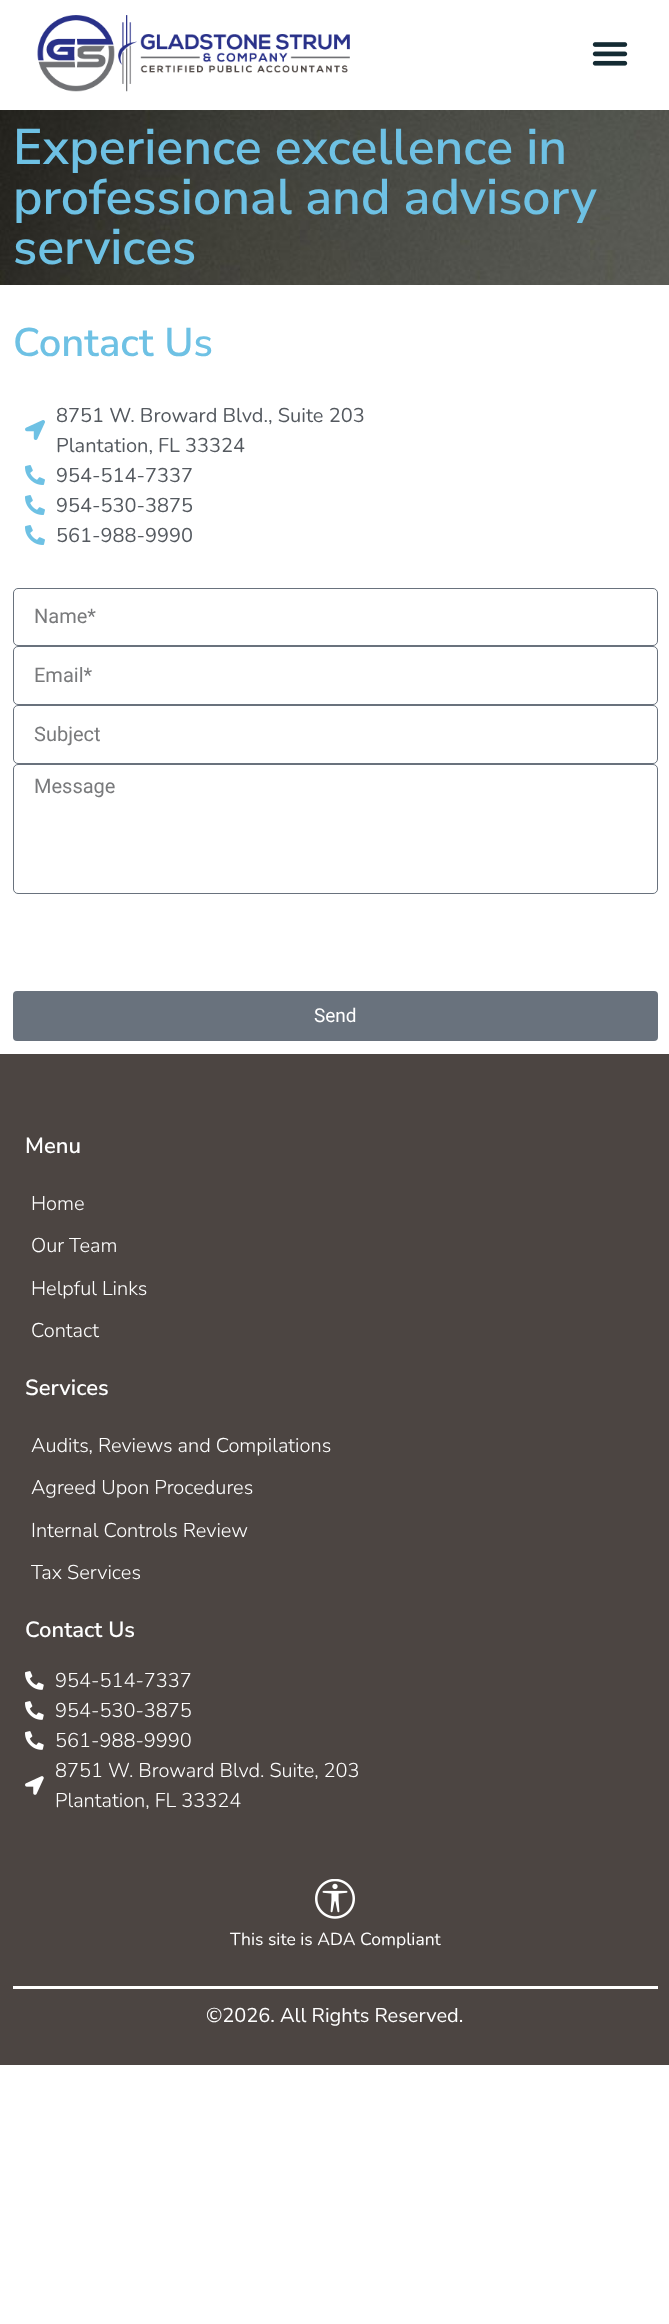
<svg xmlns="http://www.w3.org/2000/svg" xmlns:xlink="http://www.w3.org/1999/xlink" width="669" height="2324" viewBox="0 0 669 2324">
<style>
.cls-1{font:600 50px Nunito Sans;fill:#6ec1e4}
.cls-2{font:600 40px Nunito Sans;fill:#6ec1e4}
.cls-3{font:20px Nunito;fill:#54595f}
.cls-4{font:20px Roboto;fill:#797a7c}
.cls-5{font:19px Roboto;fill:#ffffff}
.cls-6{font:600 22px Nunito Sans;fill:#ffffff}
.cls-7{font:300 20px Nunito Sans;fill:#ffffff}
.cls-8{font:300 20px Nunito;fill:#ffffff}
.cls-9{font:17.5px Nunito;fill:#ffffff}
.cls-10{font:20px Nunito Sans;fill:#ffffff}
</style>
<rect width="100%" height="100%" fill="#ffffff"/>
<image xlink:href="image0.png" x="37" y="15" width="313" height="77"/>
<image xlink:href="image1.png" x="592" y="42" width="36" height="24"/>
<image xlink:href="image2.png" x="0" y="110" width="669" height="175"/>
<image xlink:href="image3.png" x="25" y="420" width="20" height="20"/>
<image xlink:href="image4.png" x="25" y="465" width="20" height="20"/>
<image xlink:href="image4.png" x="25" y="495" width="20" height="20"/>
<image xlink:href="image4.png" x="25" y="525" width="20" height="20"/>
<rect fill="none" stroke="#69727d" x="13.5" y="588.5" width="644" height="57" rx="4.5"/>
<rect fill="none" stroke="#69727d" x="13.5" y="646.5" width="644" height="58" rx="4.5"/>
<rect fill="none" stroke="#69727d" x="13.5" y="705.5" width="644" height="58" rx="4.5"/>
<rect fill="none" stroke="#69727d" x="13.5" y="764.5" width="644" height="129" rx="4.5"/>
<rect fill="#69727d" x="13" y="991" width="645" height="50" rx="4"/>
<rect fill="#4c4542" x="0" y="1054" width="669" height="1011"/>
<image xlink:href="image5.png" x="25" y="1671" width="19" height="19"/>
<image xlink:href="image5.png" x="25" y="1701" width="19" height="19"/>
<image xlink:href="image5.png" x="25" y="1731" width="19" height="19"/>
<image xlink:href="image6.png" x="25" y="1776" width="19" height="19"/>
<image xlink:href="image7.png" x="315" y="1879" width="40" height="40"/>
<rect fill="#ffffff" x="13" y="1986" width="645" height="3"/>
<text class="cls-1"><tspan x="13" y="164">Experience excellence in</tspan><tspan x="13" y="214">professional and advisory</tspan><tspan x="13" y="264">services</tspan></text>
<text class="cls-2" x="13" y="356">Contact Us</text>
<text class="cls-3"><tspan x="56" y="422">8751 W. Broward Blvd., Suite 203</tspan><tspan x="56" y="452">Plantation, FL 33324</tspan><tspan x="56" y="482">954-514-7337</tspan><tspan x="56" y="512">954-530-3875</tspan><tspan x="56" y="542">561-988-9990</tspan></text>
<text class="cls-4" x="34" y="623">Name*</text>
<text class="cls-4" x="34" y="682">Email*</text>
<text class="cls-4" x="34" y="741">Subject</text>
<text class="cls-4" x="34" y="793">Message</text>
<text class="cls-5" x="314" y="1022">Send</text>
<text class="cls-6" x="25" y="1153">Menu</text>
<text class="cls-7" x="31" y="1210">Home</text>
<text class="cls-7" x="31" y="1252">Our Team</text>
<text class="cls-7" x="31" y="1295">Helpful Links</text>
<text class="cls-7" x="31" y="1337">Contact</text>
<text class="cls-6" x="25" y="1395">Services</text>
<text class="cls-7" x="31" y="1452">Audits, Reviews and Compilations</text>
<text class="cls-7" x="31" y="1494">Agreed Upon Procedures</text>
<text class="cls-7" x="31" y="1537">Internal Controls Review</text>
<text class="cls-7" x="31" y="1579">Tax Services</text>
<text class="cls-6" x="25" y="1637">Contact Us</text>
<text class="cls-8"><tspan x="55" y="1687">954-514-7337</tspan><tspan x="55" y="1717">954-530-3875</tspan><tspan x="55" y="1747">561-988-9990</tspan><tspan x="55" y="1777">8751 W. Broward Blvd. Suite, 203</tspan><tspan x="55" y="1807">Plantation, FL 33324</tspan></text>
<text class="cls-9" x="230" y="1945">This site is ADA Compliant</text>
<text class="cls-10" x="206" y="2022">©2026. All Rights Reserved.</text>
</svg>
